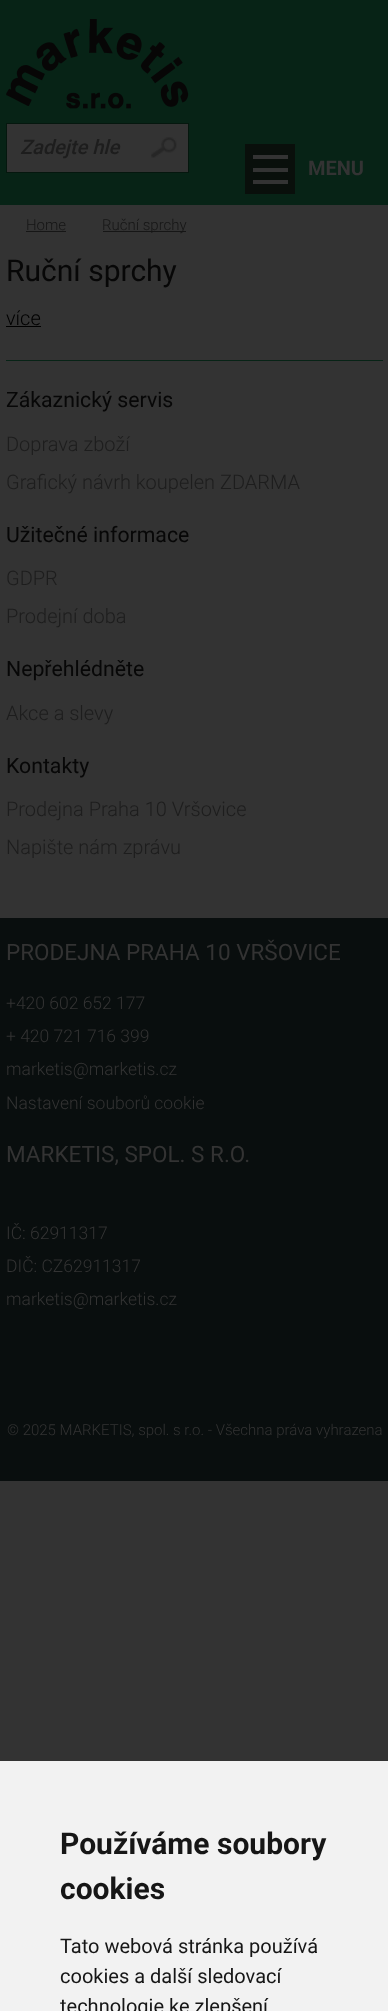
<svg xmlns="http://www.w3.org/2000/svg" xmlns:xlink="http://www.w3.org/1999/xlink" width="388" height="2011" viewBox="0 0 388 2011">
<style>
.cls-1{font:italic 500 20px Roboto;fill:#1d1d1d}
.cls-2{font:300 15px Roboto;fill:#161616}
.cls-3{font:30px Roboto;fill:#070707}
.cls-4{font:300 20px Roboto;fill:#000000}
.cls-5{font:21.25px Roboto;fill:#070707}
.cls-6{font:300 20px Roboto;fill:#1d1d1d}
.cls-7{font:22.5px Roboto;fill:#333333}
.cls-8{font:300 17.5px Roboto;fill:#333333}
.cls-9{font:300 15px Roboto;fill:#333333}
.cls-10{font:bold 20px Roboto;fill:#333333}
.cls-11{font:bold 30px Roboto;fill:#161616}
.cls-12{font:20px Roboto;fill:#161616}
</style>
<rect width="100%" height="100%" fill="#333333"/>
<rect fill="#072316" x="0" y="0" width="388" height="205"/>
<image xlink:href="image0.png" x="6" y="19" width="183" height="90"/>
<rect fill="#333333" stroke="#05170e" x="6.5" y="123.5" width="182" height="49"/>
<image xlink:href="image1.png" x="151" y="137" width="26" height="21"/>
<rect fill="#161616" x="26" y="231" width="40" height="1"/>
<rect fill="#161616" x="103" y="231" width="83" height="1"/>
<rect fill="#000000" x="6" y="326" width="35" height="1"/>
<rect fill="#072316" x="6" y="360" width="377" height="1"/>
<rect fill="#090e0e" x="0" y="918" width="388" height="563"/>
<rect fill="#090f0b" x="245" y="144" width="50" height="50"/>
<rect fill="#333333" x="253" y="168" width="35" height="4"/>
<rect fill="#333333" x="253" y="155" width="35" height="4"/>
<rect fill="#333333" x="253" y="180" width="35" height="4"/>
<rect fill="#f2f2f2" x="0" y="1761" width="388" height="250"/>
<text class="cls-1" x="20" y="154">Zadejte hle</text>
<text class="cls-2" x="26" y="230">Home</text>
<text class="cls-2" x="102" y="230">Ruční sprchy</text>
<text class="cls-3" x="6" y="281">Ruční sprchy</text>
<text class="cls-4" x="6" y="325">více</text>
<text class="cls-5" x="6" y="407">Zákaznický servis</text>
<text class="cls-6"><tspan x="6" y="451">Doprava zboží</tspan><tspan x="6" y="489">Grafický návrh koupelen ZDARMA</tspan></text>
<text class="cls-5" x="6" y="542">Užitečné informace</text>
<text class="cls-6"><tspan x="6" y="585">GDPR</tspan><tspan x="6" y="623">Prodejní doba</tspan></text>
<text class="cls-5" x="6" y="676">Nepřehlédněte</text>
<text class="cls-6" x="6" y="720">Akce a slevy</text>
<text class="cls-5" x="6" y="773">Kontakty</text>
<text class="cls-6"><tspan x="6" y="816">Prodejna Praha 10 Vršovice</tspan><tspan x="6" y="854">Napište nám zprávu</tspan></text>
<text class="cls-7" x="6" y="960">PRODEJNA PRAHA 10 VRŠOVICE</text>
<text class="cls-8"><tspan x="6" y="1009">+420 602 652 177</tspan><tspan x="6" y="1042">+ 420 721 716 399</tspan><tspan x="6" y="1075">marketis@marketis.cz</tspan><tspan x="6" y="1109">Nastavení souborů cookie</tspan></text>
<text class="cls-7" x="6" y="1162">MARKETIS, SPOL. S R.O.</text>
<text class="cls-8"><tspan x="6" y="1239">IČ: 62911317</tspan><tspan x="6" y="1272">DIČ: CZ62911317</tspan><tspan x="6" y="1305">marketis@marketis.cz</tspan></text>
<text class="cls-9" x="7" y="1435">© 2025 MARKETIS, spol. s r.o. - Všechna práva vyhrazena</text>
<text class="cls-10" x="308" y="175">MENU</text>
<text class="cls-11"><tspan x="60" y="1854">Používáme soubory</tspan><tspan x="60" y="1899">cookies</tspan></text>
<text class="cls-12"><tspan x="60" y="1953">Tato webová stránka používá</tspan><tspan x="60" y="1983">cookies a další sledovací</tspan><tspan x="60" y="2013">technologie ke zlepšení</tspan></text>
</svg>
